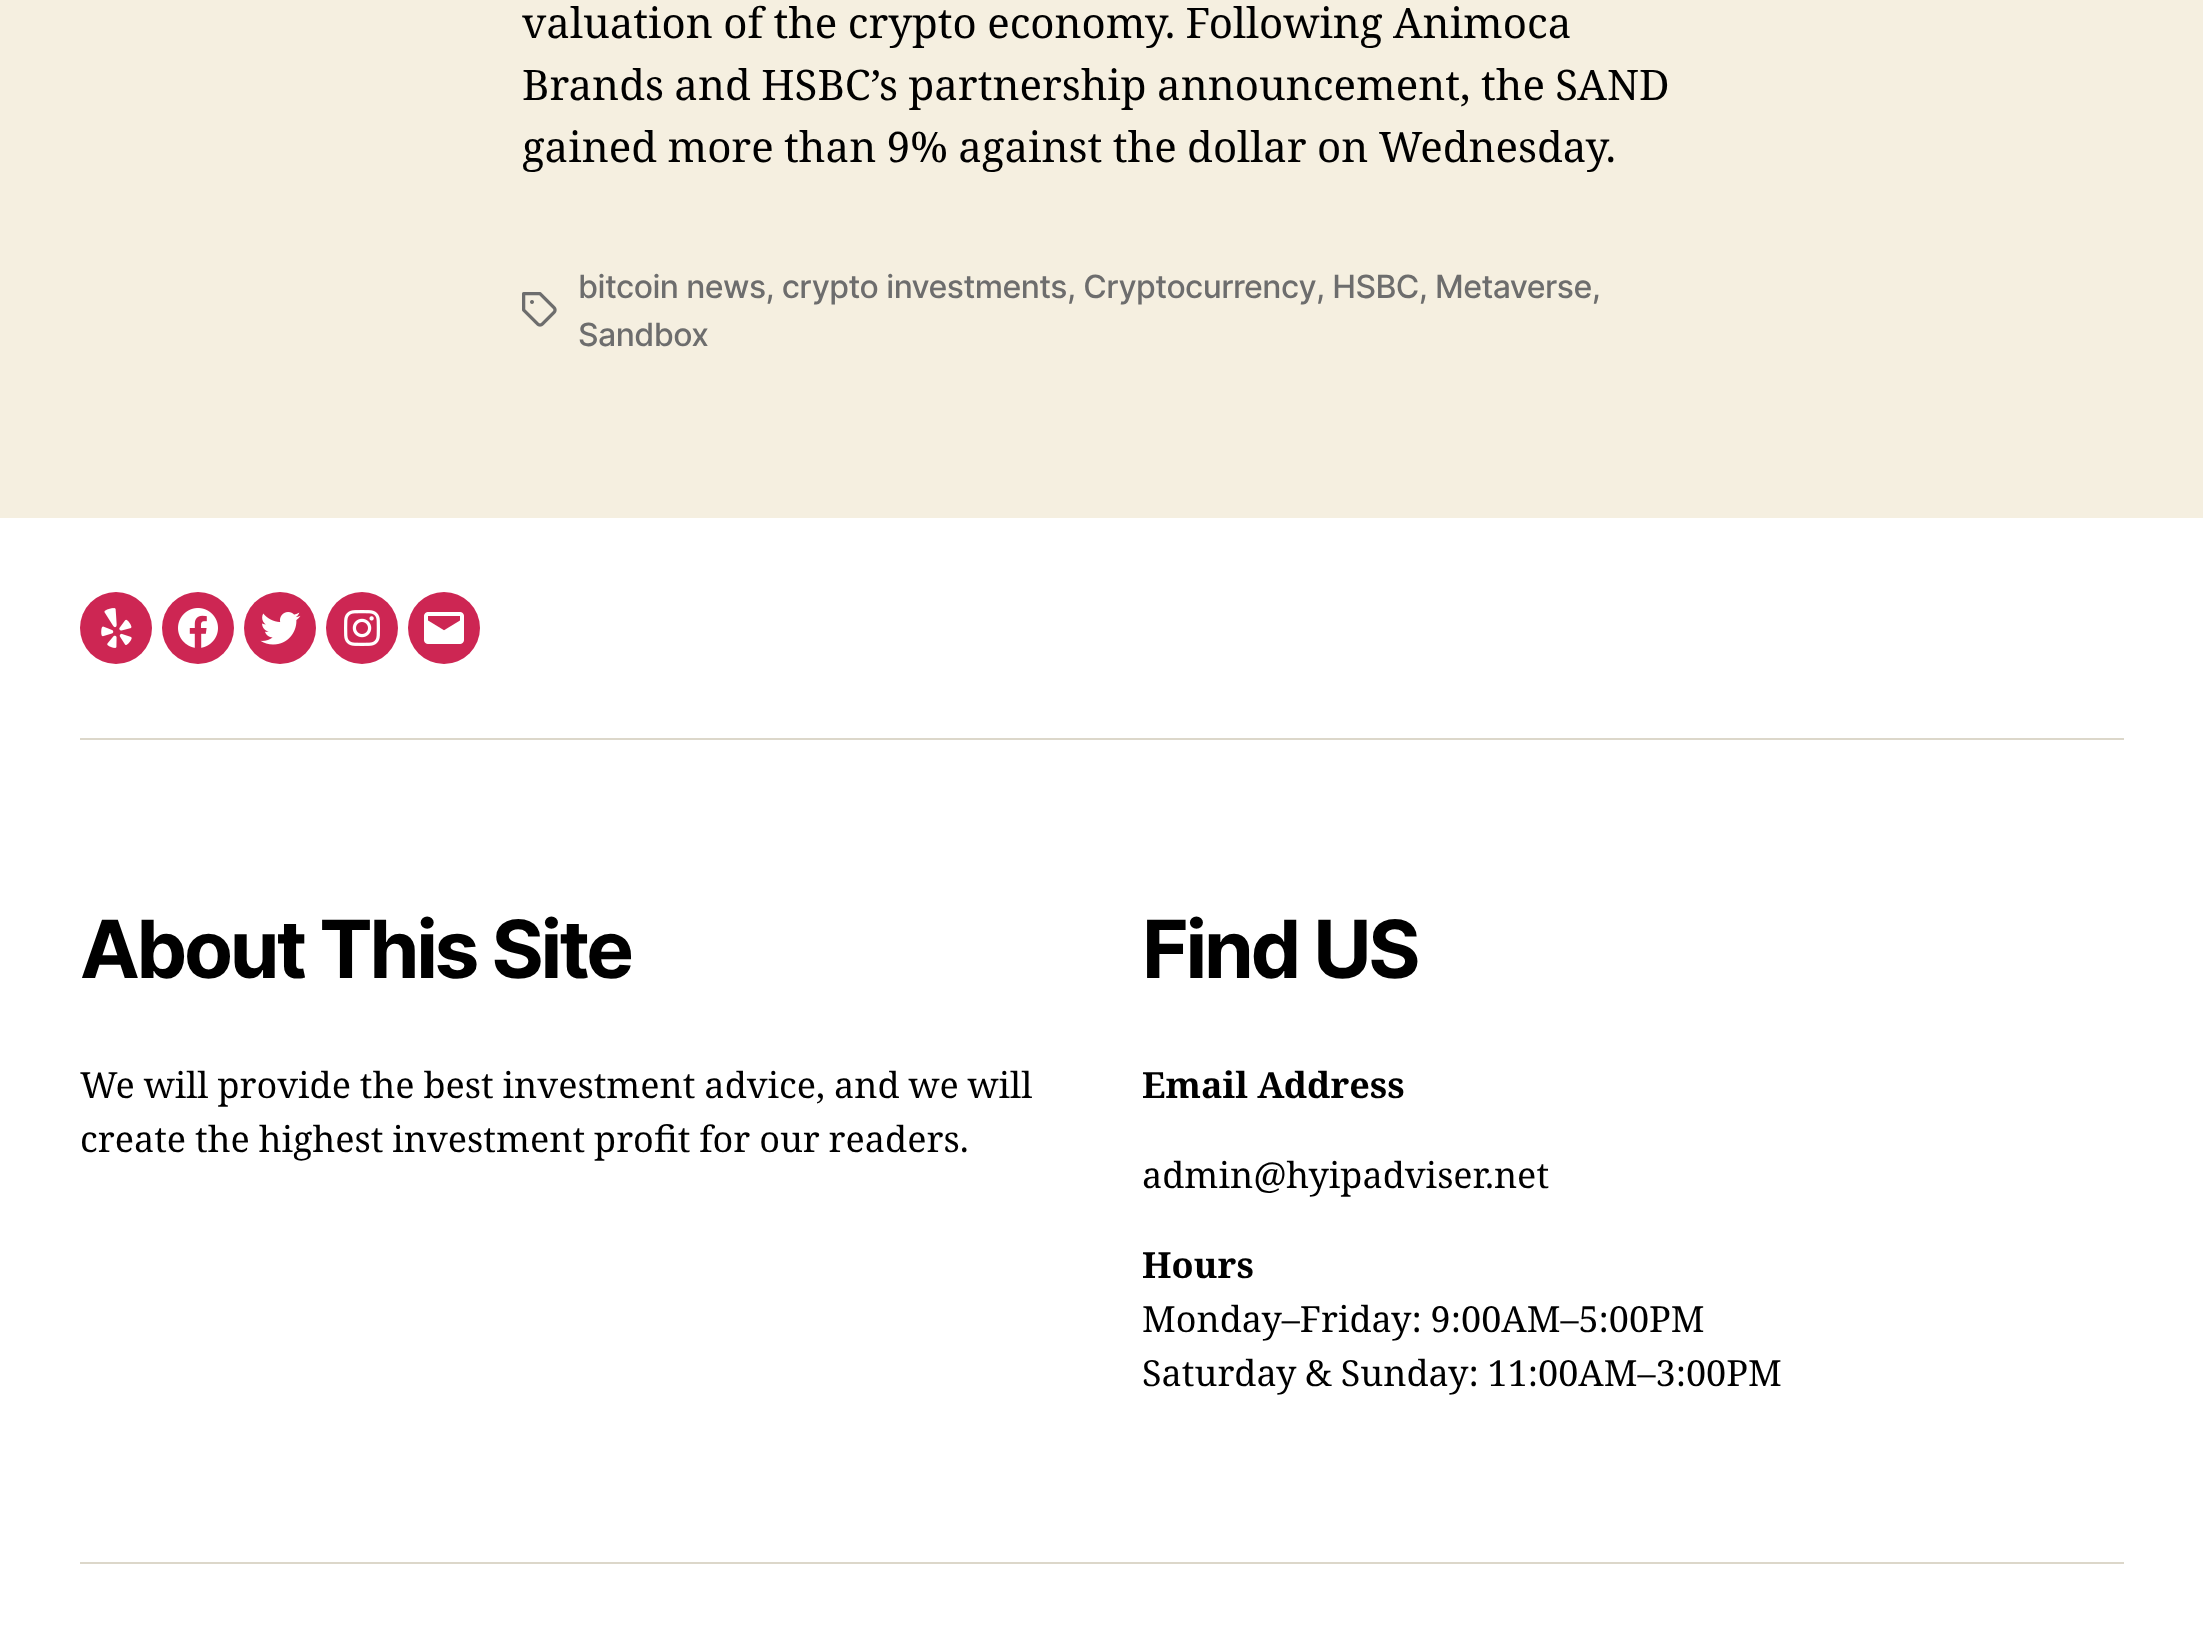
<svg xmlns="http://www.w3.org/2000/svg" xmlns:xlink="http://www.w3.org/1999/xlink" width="2203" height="1636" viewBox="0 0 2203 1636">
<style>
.cls-1{font:42px Noto Serif;fill:#000000}
.cls-2{font:500 32px Inter;letter-spacing:-0.55px;fill:#6d6d6d}
.cls-3{font:bold 80px Inter;letter-spacing:-3.3px;fill:#000000}
.cls-4{font:36px Noto Serif;fill:#000000}
.cls-5{font:bold 36px Noto Serif;fill:#000000}
</style>
<rect width="100%" height="100%" fill="#f5efe0"/>
<image xlink:href="image0.png" x="522" y="292" width="35" height="35"/>
<rect fill="#ffffff" x="0" y="518" width="2203" height="1118"/>
<rect fill="#dcd7ca" x="80" y="738" width="2044" height="2"/>
<circle fill="#cd2653" cx="116" cy="628" r="36"/>
<image xlink:href="image1.png" x="101" y="608" width="31" height="40"/>
<circle fill="#cd2653" cx="198" cy="628" r="36"/>
<image xlink:href="image2.png" x="178" y="608" width="40" height="40"/>
<circle fill="#cd2653" cx="280" cy="628" r="36"/>
<image xlink:href="image3.png" x="260" y="612" width="41" height="33"/>
<circle fill="#cd2653" cx="362" cy="628" r="36"/>
<image xlink:href="image4.png" x="344" y="610" width="36" height="36"/>
<circle fill="#cd2653" cx="444" cy="628" r="36"/>
<image xlink:href="image5.png" x="424" y="612" width="40" height="32"/>
<rect fill="#dcd7ca" x="80" y="1562" width="2044" height="2"/>
<text class="cls-1"><tspan x="522" y="38" word-spacing="-0.5">valuation of the crypto economy. Following Animoca</tspan><tspan x="522" y="100" word-spacing="-0.5">Brands and HSBC’s partnership announcement, the SAND</tspan><tspan x="522" y="162" word-spacing="-0.5">gained more than 9% against the dollar on Wednesday.</tspan></text>
<text class="cls-2" x="578" y="298">bitcoin news, crypto investments, Cryptocurrency</text>
<text class="cls-2" x="1316" y="298">, HSBC, Metaverse,</text>
<text class="cls-2" x="578" y="346">Sandbox</text>
<text class="cls-3" x="80" y="978">About This Site</text>
<text class="cls-4"><tspan x="80" y="1098" word-spacing="-0.5">We will provide the best investment advice, and we will</tspan><tspan x="80" y="1152" word-spacing="-0.5">create the highest investment profit for our readers.</tspan></text>
<text class="cls-3" x="1142" y="978">Find US</text>
<text class="cls-5" x="1142" y="1098">Email Address</text>
<text class="cls-4" x="1142" y="1188">admin@hyipadviser.net</text>
<text class="cls-5" x="1142" y="1278">Hours</text>
<text class="cls-4"><tspan x="1142" y="1332" word-spacing="-0.5">Monday–Friday: 9:00AM–5:00PM</tspan><tspan x="1142" y="1386" word-spacing="-0.5">Saturday &amp; Sunday: 11:00AM–3:00PM</tspan></text>
</svg>
